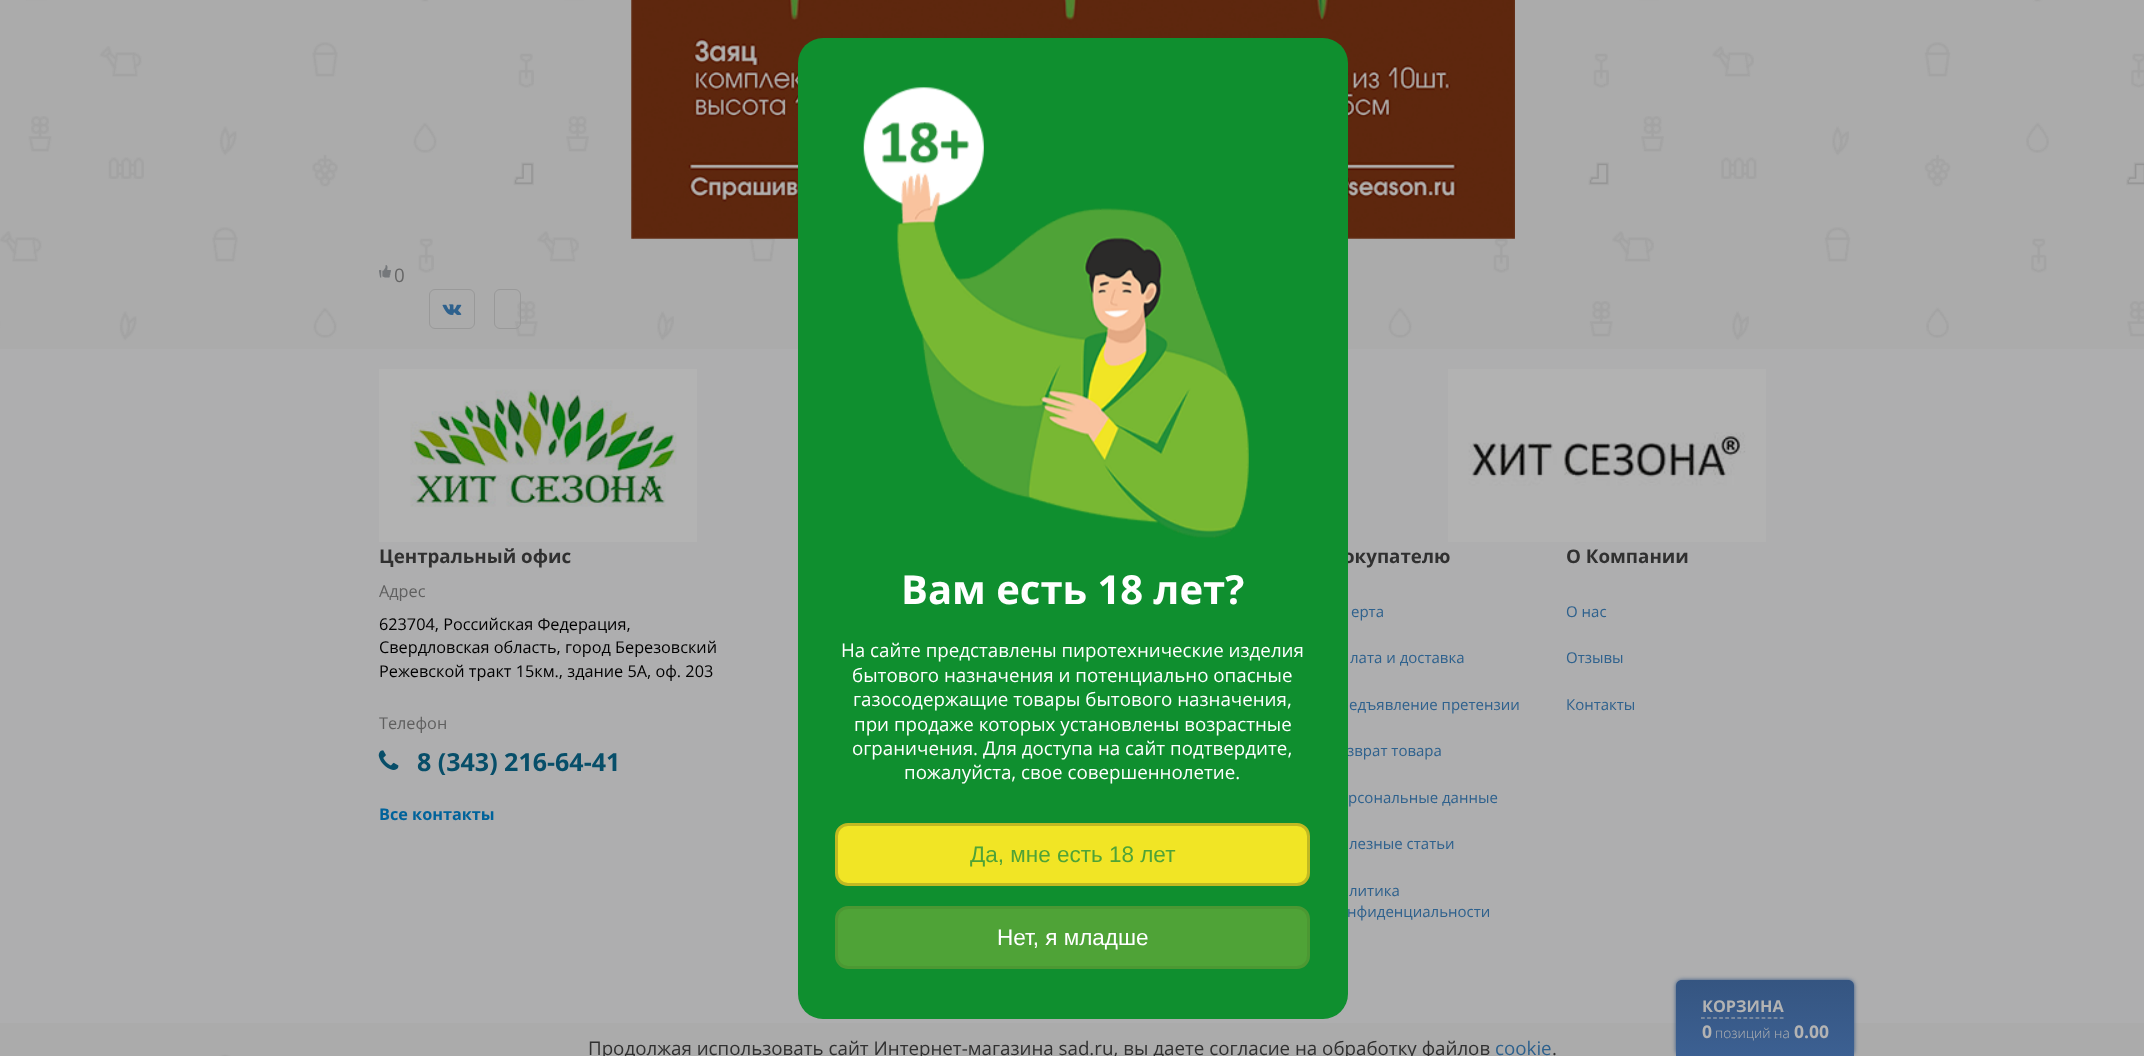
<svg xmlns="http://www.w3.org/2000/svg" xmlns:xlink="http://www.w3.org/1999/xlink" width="2144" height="1056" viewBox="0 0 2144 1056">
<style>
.cls-1{font:18.75px Open Sans;fill:#666666}
.cls-2{font:bold 16.25px Open Sans;fill:#b3b3b3}
.cls-3{font:bold 17.5px Open Sans;fill:#b3b3b3}
.cls-4{font:300 13.75px Open Sans;fill:#b3b3b3}
.cls-5{font:bold 18.75px Open Sans;fill:#303030}
.cls-6{font:16.25px Open Sans;fill:#5f5f5f}
.cls-7{font:16.25px Open Sans;fill:#000000}
.cls-8{font:bold 25px Open Sans;fill:#074e69}
.cls-9{font:bold 16.25px Open Sans;fill:#00639b}
.cls-10{font:15px Open Sans;fill:#2e618d}
.cls-11{font:bold 40px Open Sans;fill:#ffffff}
.cls-12{font:18.75px Open Sans;fill:#ffffff}
.cls-13{font:22.5px Liberation Sans;fill:#4fa337}
.cls-14{font:22.5px Liberation Sans;fill:#ffffff}
.cls-15{font:18.75px Open Sans;fill:#303030}
.cls-16{font:18.75px Open Sans;fill:#2e618d}
</style>
<defs>
<linearGradient id="g1" gradientUnits="userSpaceOnUse" x1="1765" y1="980" x2="1765" y2="1056"><stop offset="0" stop-color="#355581"/><stop offset="1" stop-color="#3c6092"/></linearGradient>
</defs>
<rect width="100%" height="100%" fill="#ababab"/>
<image xlink:href="image0.png" x="0" y="0" width="2144" height="1056"/>
<image xlink:href="image1.png" x="631" y="0" width="884" height="239"/>
<image xlink:href="image2.png" x="379" y="265" width="12" height="13"/>
<rect fill="none" stroke="#999999" x="429.5" y="289.5" width="45" height="39" rx="5.5"/>
<image xlink:href="image3.png" x="442" y="304" width="20" height="11"/>
<rect fill="none" stroke="#999999" x="494.5" y="289.5" width="26" height="39" rx="5.5"/>
<rect fill="#aeaeaf" x="0" y="349" width="2144" height="674"/>
<rect fill="#355581" filter="blur(2px)" x="1676" y="980" width="178" height="76" rx="6"/>
<path fill="url(#g1)" d="M1682 980H1848C1851.5 980 1854 982.5 1854 986V1056H1676V986C1676 982.5 1678.5 980 1682 980Z"/>
<path fill="none" stroke="#b3b3b3" stroke-width="1.2" stroke-dasharray="3.75 2.31" d="M1701 1018H1784"/>
<image xlink:href="image4.png" x="379" y="369" width="318" height="173"/>
<image xlink:href="image5.png" x="1448" y="369" width="318" height="173"/>
<image xlink:href="image6.png" x="378" y="750" width="21" height="20"/>
<text class="cls-1" x="394" y="282">0</text>
<text class="cls-2" x="1702" y="1012">КОРЗИНА</text>
<text class="cls-3" x="1702" y="1038">0</text>
<text class="cls-4" x="1715" y="1038">позиций на</text>
<text class="cls-3" x="1794" y="1038">0.00</text>
<text class="cls-5" x="379" y="563">Центральный офис</text>
<text class="cls-6" x="379" y="597">Адрес</text>
<text class="cls-7"><tspan x="379" y="630">623704, Российская Федерация,</tspan><tspan x="379" y="653">Свердловская область, город Березовский</tspan><tspan x="379" y="677">Режевской тракт 15км., здание 5А, оф. 203</tspan></text>
<text class="cls-6" x="379" y="729">Телефон</text>
<text class="cls-8" x="417" y="771">8 (343) 216-64-41</text>
<text class="cls-9" x="379" y="820">Все контакты</text>
<text class="cls-5" x="1343" y="563">окупателю</text>
<text class="cls-10" x="1351" y="617">ерта</text>
<text class="cls-10" x="1350" y="663">лата и доставка</text>
<text class="cls-10" x="1349" y="710">едъявление претензии</text>
<text class="cls-10" x="1347" y="756">зврат товара</text>
<text class="cls-10" x="1348" y="803">рсональные данные</text>
<text class="cls-10" x="1349" y="849">лезные статьи</text>
<text class="cls-10" x="1349" y="896">литика</text>
<text class="cls-10" x="1347" y="917">нфиденциальности</text>
<text class="cls-5" x="1566" y="563">О Компании</text>
<text class="cls-10" x="1566" y="617">О нас</text>
<text class="cls-10" x="1566" y="663">Отзывы</text>
<text class="cls-10" x="1566" y="710">Контакты</text>
<rect fill="#0f8f2f" x="798" y="38" width="550" height="981" rx="25"/>
<image xlink:href="image7.png" x="863" y="87" width="386" height="451"/>
<text class="cls-11" x="901" y="604">Вам есть 18 лет?</text>
<text class="cls-12" x="841" y="657">На сайте представлены пиротехнические изделия</text>
<text class="cls-12" x="852" y="682">бытового назначения и потенциально опасные</text>
<text class="cls-12" x="853" y="706">газосодержащие товары бытового назначения,</text>
<text class="cls-12" x="854" y="731">при продаже которых установлены возрастные</text>
<text class="cls-12" x="852" y="755">ограничения. Для доступа на сайт подтвердите,</text>
<text class="cls-12" x="904" y="779">пожалуйста, свое совершеннолетие.</text>
<rect fill="#f1e525" stroke="#c1b922" stroke-width="3" x="836.5" y="824.5" width="472" height="60" rx="11.5"/>
<text class="cls-13" x="970" y="862">Да, мне есть 18 лет</text>
<rect fill="#4fa337" stroke="#4c9833" stroke-width="3" x="836.5" y="907.5" width="472" height="60" rx="11.5"/>
<text class="cls-14" x="997" y="945">Нет, я младше</text>
<text class="cls-15" x="588" y="1055">Продолжая использовать сайт Интернет-магазина sad.ru, вы даете согласие на обработку файлов</text>
<text class="cls-16" x="1495" y="1055">cookie</text>
<text class="cls-15" x="1552" y="1055">.</text>
</svg>
